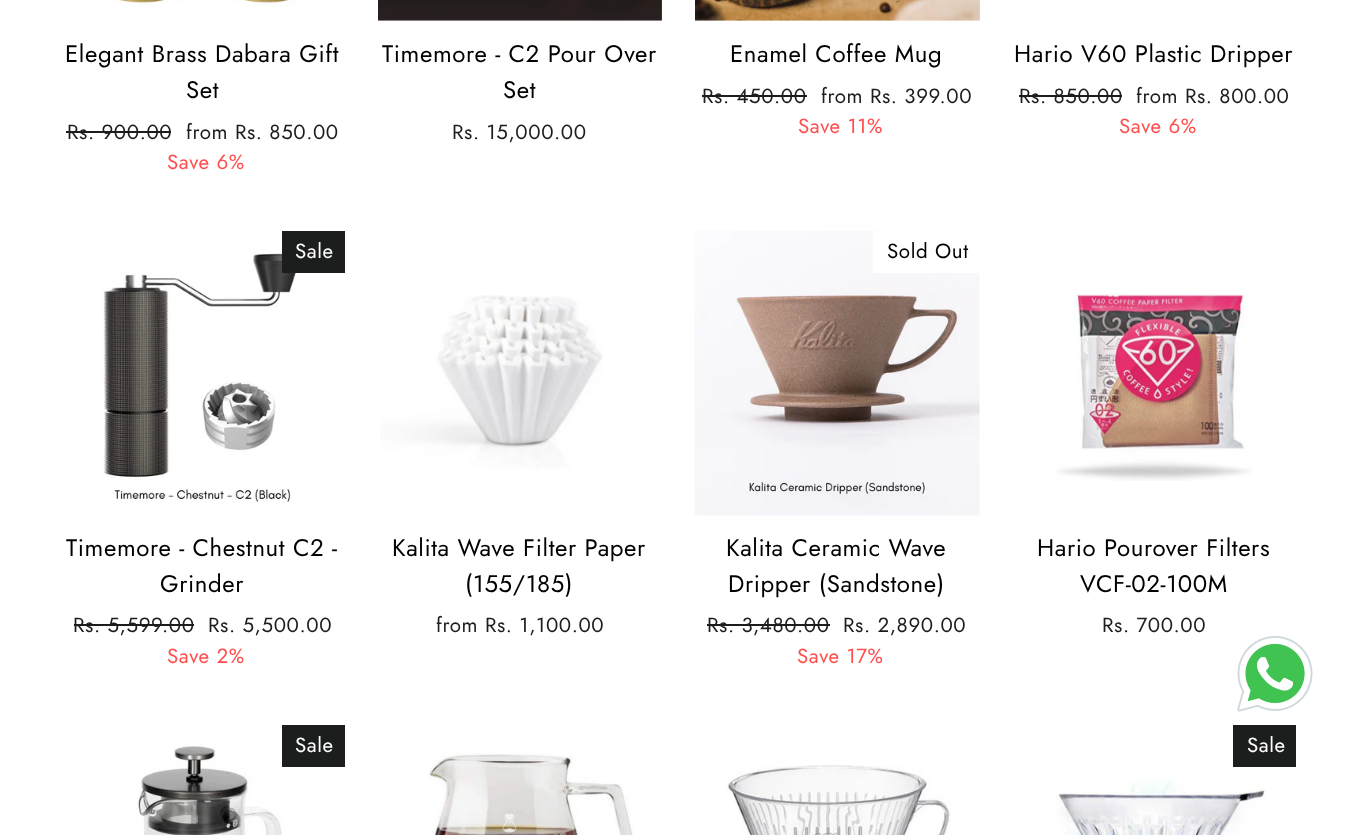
<svg xmlns="http://www.w3.org/2000/svg" xmlns:xlink="http://www.w3.org/1999/xlink" width="1356" height="835" viewBox="0 0 1356 835">
<style>
.cls-1{font:24px Jost;letter-spacing:0.6px;fill:#000000}
.cls-2{font:20.5px Jost;letter-spacing:0.6px;fill:#1c1d1d}
.cls-3{font:20.5px Jost;letter-spacing:0.6px;fill:#ff4e4e}
.cls-4{font:20.5px Jost;letter-spacing:0.6px;fill:#ffffff}
.cls-5{font:20.5px Jost;letter-spacing:0.6px;fill:#000000}
</style>
<rect width="100%" height="100%" fill="#ffffff"/>
<image xlink:href="image0.png" x="111" y="0" width="185" height="6"/>
<rect fill="#1c1d1d" x="66" y="131" width="105" height="2"/>
<image xlink:href="image1.png" x="378" y="0" width="284" height="21"/>
<image xlink:href="image2.png" x="695" y="0" width="285" height="21"/>
<rect fill="#1c1d1d" x="702" y="95" width="105" height="2"/>
<rect fill="#1c1d1d" x="1019" y="95" width="103" height="2"/>
<image xlink:href="image3.png" x="101" y="253" width="199" height="250"/>
<rect fill="#1c1d1d" x="282" y="231" width="63" height="42"/>
<rect fill="#1c1d1d" x="74" y="624" width="120" height="2"/>
<image xlink:href="image4.png" x="380" y="295" width="223" height="174"/>
<image xlink:href="image5.png" x="694" y="230" width="286" height="286"/>
<rect fill="#ffffff" x="873" y="231" width="107" height="42"/>
<rect fill="#1c1d1d" x="707" y="624" width="123" height="2"/>
<image xlink:href="image6.png" x="1057" y="293" width="195" height="188"/>
<image xlink:href="image7.png" x="136" y="746" width="146" height="89"/>
<rect fill="#1c1d1d" x="282" y="725" width="63" height="42"/>
<rect fill="#1c1d1d" x="1233" y="725" width="63" height="42"/>
<image xlink:href="image8.png" x="1056" y="779" width="209" height="56"/>
<image xlink:href="image9.png" x="428" y="753" width="205" height="82"/>
<image xlink:href="image10.png" x="726" y="765" width="225" height="70"/>
<image xlink:href="image11.png" x="1237" y="636" width="76" height="76"/>
<text class="cls-1" x="65" y="62">Elegant Brass Dabara Gift</text>
<text class="cls-1" x="186" y="98">Set</text>
<text class="cls-2" x="67" y="139">Rs. 900.00</text>
<text class="cls-2" x="186" y="139">from Rs. 850.00</text>
<text class="cls-3" x="167" y="169">Save 6%</text>
<text class="cls-1" x="382" y="62">Timemore - C2 Pour Over</text>
<text class="cls-1" x="503" y="98">Set</text>
<text class="cls-2" x="452" y="139">Rs. 15,000.00</text>
<text class="cls-1" x="730" y="62">Enamel Coffee Mug</text>
<text class="cls-2" x="702" y="103">Rs. 450.00</text>
<text class="cls-2" x="821" y="103">from Rs. 399.00</text>
<text class="cls-3" x="798" y="133">Save 11%</text>
<text class="cls-1" x="1014" y="62">Hario V60 Plastic Dripper</text>
<text class="cls-2" x="1019" y="103">Rs. 850.00</text>
<text class="cls-2" x="1136" y="103">from Rs. 800.00</text>
<text class="cls-3" x="1119" y="133">Save 6%</text>
<text class="cls-4" x="295" y="258">Sale</text>
<text class="cls-1" x="66" y="556">Timemore - Chestnut C2 -</text>
<text class="cls-1" x="160" y="592">Grinder</text>
<text class="cls-2" x="73" y="632">Rs. 5,599.00</text>
<text class="cls-2" x="208" y="632">Rs. 5,500.00</text>
<text class="cls-3" x="167" y="663">Save 2%</text>
<text class="cls-1" x="392" y="556">Kalita Wave Filter Paper</text>
<text class="cls-1" x="465" y="592">(155/185)</text>
<text class="cls-2" x="436" y="632">from Rs. 1,100.00</text>
<text class="cls-5" x="887" y="258">Sold Out</text>
<text class="cls-1" x="726" y="556">Kalita Ceramic Wave</text>
<text class="cls-1" x="728" y="592">Dripper (Sandstone)</text>
<text class="cls-2" x="707" y="632">Rs. 3,480.00</text>
<text class="cls-2" x="843" y="632">Rs. 2,890.00</text>
<text class="cls-3" x="797" y="663">Save 17%</text>
<text class="cls-1" x="1037" y="556">Hario Pourover Filters</text>
<text class="cls-1" x="1080" y="592">VCF-02-100M</text>
<text class="cls-2" x="1102" y="632">Rs. 700.00</text>
<text class="cls-4" x="295" y="752">Sale</text>
<text class="cls-4" x="1247" y="752">Sale</text>
</svg>
